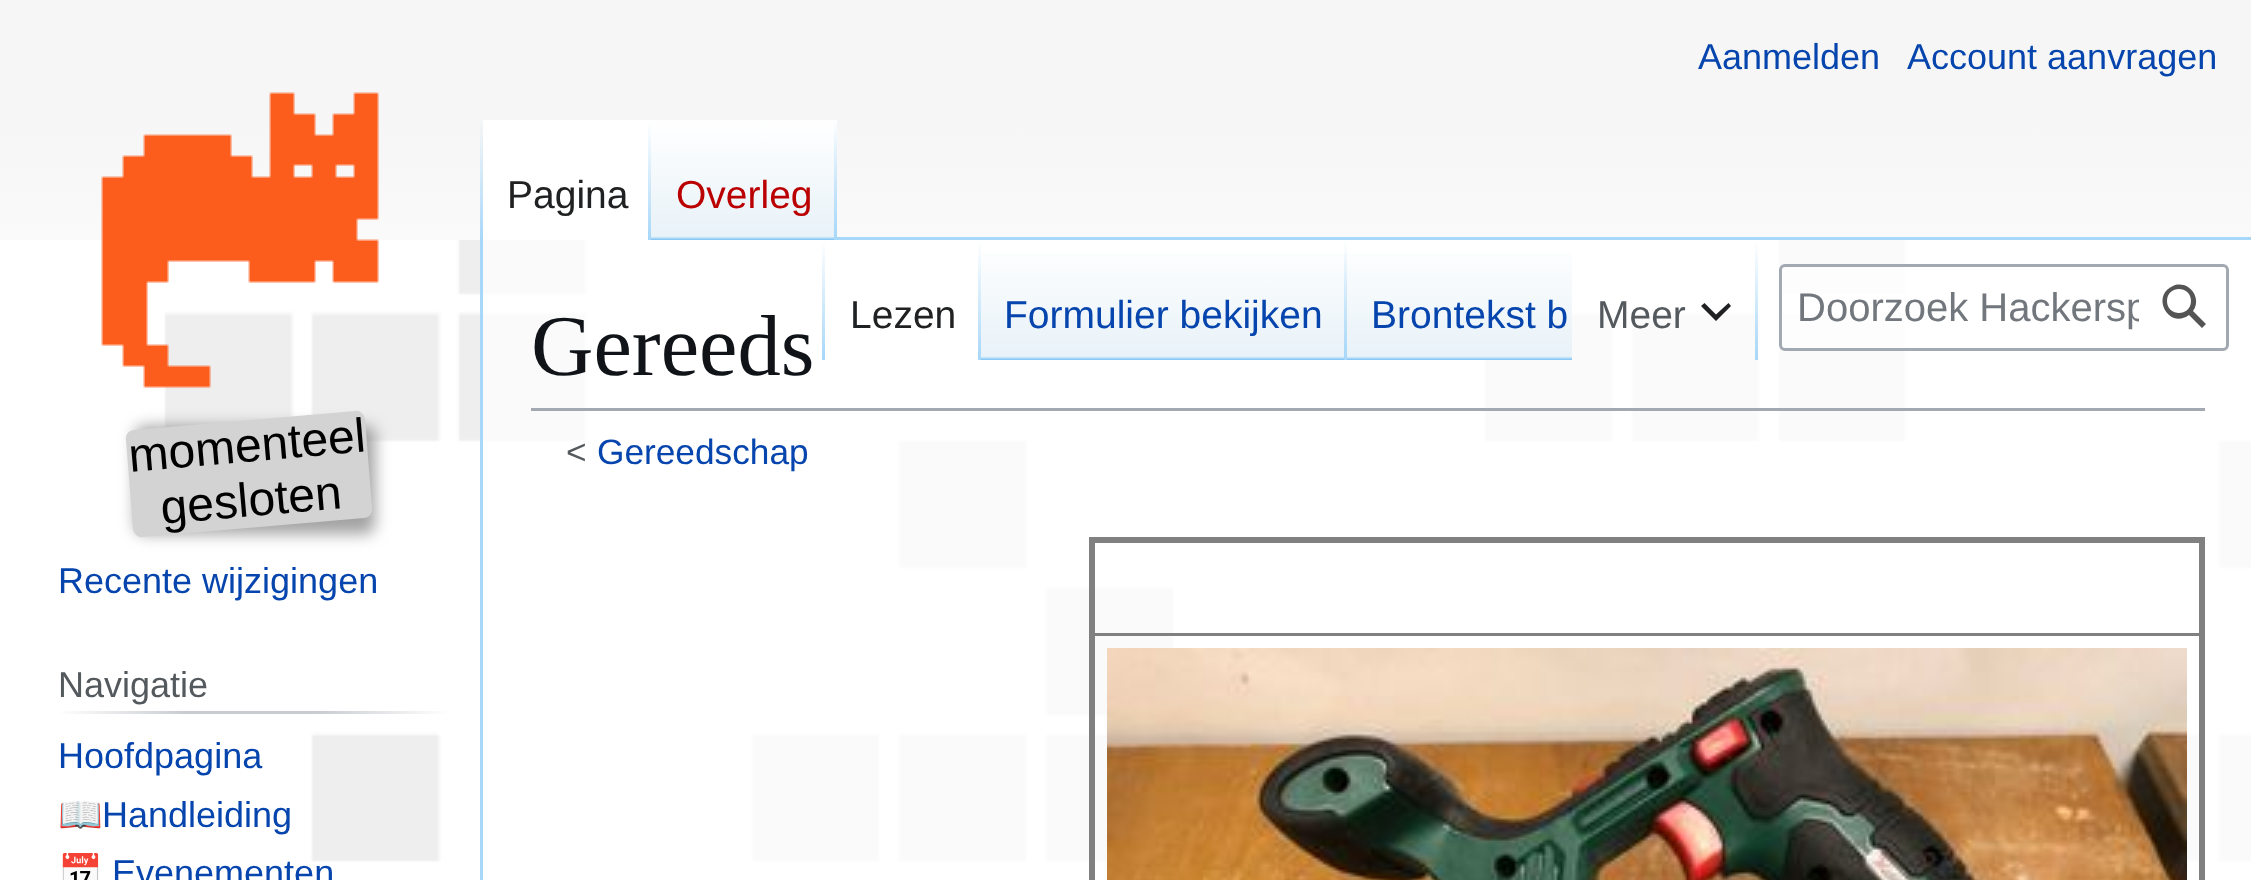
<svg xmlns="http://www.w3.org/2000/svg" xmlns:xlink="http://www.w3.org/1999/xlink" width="2251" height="880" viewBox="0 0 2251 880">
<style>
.cls-1{font:36px Liberation Sans;fill:#0645ad}
.cls-2{font:39px Liberation Sans;fill:#202122}
.cls-3{font:39px Liberation Sans;fill:#ba0000}
.cls-4{font:39px Liberation Sans;fill:#0645ad}
.cls-5{font:39px Liberation Sans;fill:#54595d}
.cls-6{font:40px Liberation Sans;fill:#72777d}
.cls-7{font:48px Liberation Sans;fill:#000000}
.cls-8{font:36px Liberation Sans;fill:#54595d}
.cls-9{font:36px Noto Color Emoji;fill:#0645ad}
.cls-10{font:86.5px Liberation Serif;fill:#101418}
.cls-11{font:35.25px Liberation Sans;fill:#54595d}
.cls-12{font:35.25px Liberation Sans;fill:#0645ad}
</style>
<defs>
<linearGradient id="g1" gradientUnits="userSpaceOnUse" x1="1127" y1="0" x2="1127" y2="240"><stop offset="0.5" stop-color="#f6f6f6"/><stop offset="1" stop-color="#fafafa"/></linearGradient>
<linearGradient id="g2" gradientUnits="userSpaceOnUse" x1="482" y1="120" x2="482" y2="240"><stop offset="0" stop-color="#a7d7f9" stop-opacity="0"/><stop offset="1" stop-color="#a7d7f9"/></linearGradient>
<linearGradient id="g3" gradientUnits="userSpaceOnUse" x1="650" y1="120" x2="650" y2="240"><stop offset="0" stop-color="#ffffff"/><stop offset="1" stop-color="#a7d7f9"/></linearGradient>
<linearGradient id="g4" gradientUnits="userSpaceOnUse" x1="744" y1="240" x2="744" y2="120"><stop offset="0" stop-color="#77c1f6"/><stop offset="0.03" stop-color="#e8f2f8"/><stop offset="1" stop-color="#ffffff"/></linearGradient>
<linearGradient id="g5" gradientUnits="userSpaceOnUse" x1="836" y1="120" x2="836" y2="240"><stop offset="0" stop-color="#a7d7f9" stop-opacity="0"/><stop offset="1" stop-color="#a7d7f9"/></linearGradient>
<linearGradient id="g6" gradientUnits="userSpaceOnUse" x1="824" y1="240" x2="824" y2="360"><stop offset="0" stop-color="#a7d7f9" stop-opacity="0"/><stop offset="1" stop-color="#a7d7f9"/></linearGradient>
<linearGradient id="g7" gradientUnits="userSpaceOnUse" x1="980" y1="240" x2="980" y2="360"><stop offset="0" stop-color="#ffffff"/><stop offset="1" stop-color="#a7d7f9"/></linearGradient>
<linearGradient id="g8" gradientUnits="userSpaceOnUse" x1="1164" y1="360" x2="1164" y2="240"><stop offset="0" stop-color="#77c1f6"/><stop offset="0.03" stop-color="#e8f2f8"/><stop offset="1" stop-color="#ffffff"/></linearGradient>
<linearGradient id="g9" gradientUnits="userSpaceOnUse" x1="1346" y1="240" x2="1346" y2="360"><stop offset="0" stop-color="#a7d7f9" stop-opacity="0"/><stop offset="1" stop-color="#a7d7f9"/></linearGradient>
<linearGradient id="g10" gradientUnits="userSpaceOnUse" x1="1460" y1="360" x2="1460" y2="240"><stop offset="0" stop-color="#77c1f6"/><stop offset="0.03" stop-color="#e8f2f8"/><stop offset="1" stop-color="#ffffff"/></linearGradient>
<linearGradient id="g11" gradientUnits="userSpaceOnUse" x1="1757" y1="240" x2="1757" y2="360"><stop offset="0" stop-color="#a7d7f9" stop-opacity="0"/><stop offset="1" stop-color="#a7d7f9"/></linearGradient>
<linearGradient id="g12" gradientUnits="userSpaceOnUse" x1="57" y1="713" x2="450" y2="713"><stop offset="0" stop-color="#ffffff"/><stop offset="0.33" stop-color="#c8ccd1"/><stop offset="0.66" stop-color="#c8ccd1"/><stop offset="1" stop-color="#ffffff"/></linearGradient>
<clipPath id="clip1"><rect x="1797" y="285" width="342" height="45"/></clipPath>
</defs>
<rect width="100%" height="100%" fill="#ffffff"/>
<image xlink:href="image0.png" x="164" y="240" width="2087" height="622"/>
<rect fill="url(#g1)" x="0" y="0" width="2251" height="240"/>
<rect fill="#a7d7f9" x="480" y="237" width="3" height="643"/>
<rect fill="url(#g2)" x="480" y="120" width="3" height="120"/>
<rect fill="#ffffff" x="483" y="120" width="165" height="120"/>
<rect fill="url(#g3)" x="648" y="120" width="3" height="120"/>
<rect fill="url(#g4)" x="651" y="120" width="186" height="120"/>
<rect fill="url(#g5)" x="834" y="120" width="3" height="120"/>
<rect fill="#ffffff" fill-opacity="0.7" x="483" y="240" width="1768" height="622"/>
<rect fill="url(#g6)" x="822" y="240" width="3" height="120"/>
<rect fill="url(#g7)" x="978" y="240" width="3" height="120"/>
<rect fill="url(#g8)" x="981" y="253" width="366" height="107"/>
<rect fill="url(#g9)" x="1344" y="240" width="3" height="120"/>
<rect fill="url(#g10)" x="1347" y="253" width="225" height="107"/>
<rect fill="url(#g11)" x="1755" y="240" width="3" height="120"/>
<path fill="#202122" d="M1731 306L1728.5 303L1716 314.5L1704.5 303L1701 306L1716 321Z"/>
<rect fill="#ffffff" fill-opacity="0.5" stroke="#a2a9b1" stroke-width="3" x="1780.5" y="265.5" width="447" height="84" rx="4.5"/>
<path fill="#545454" d="M2189 315C2169 330 2150 296 2173 286C2177 284 2183 284 2188 287C2196 292 2199 303 2193 311L2206 324L2202 328ZM2167 301C2167 317 2191 317 2191 301C2191 285 2167 285 2167 301"/>
<image xlink:href="image1.png" x="101" y="92" width="278" height="296"/>
<rect fill="#646464" fill-opacity="0.6" filter="blur(7.5px)" x="135" y="426" width="240" height="108" rx="9"/>
<path fill="#d3d3d3" d="M134 430L355 411C360 410 364 414 365 419L372 508C373 513 369 518 364 518L143 537C138 538 134 534 133 529L126 440C125 435 129 430 134 430Z"/>
<rect fill="url(#g12)" x="57" y="711" width="393" height="3"/>
<rect fill="#a7d7f9" x="837" y="237" width="1414" height="3"/>
<rect fill="#a2a9b1" x="531" y="408" width="1674" height="3"/>
<rect fill="#808080" x="1089" y="537" width="1116" height="6"/>
<rect fill="#808080" x="1092" y="633" width="1113" height="3"/>
<rect fill="#808080" x="2199" y="537" width="6" height="343"/>
<rect fill="#808080" x="1089" y="537" width="6" height="343"/>
<image xlink:href="image2.png" x="1107" y="648" width="1080" height="232"/>
<text class="cls-1" x="1698" y="69">Aanmelden</text>
<text class="cls-1" x="1907" y="69">Account aanvragen</text>
<text class="cls-2" x="507" y="208">Pagina</text>
<text class="cls-3" x="676" y="208">Overleg</text>
<text class="cls-2" x="850" y="328">Lezen</text>
<text class="cls-4" x="1004" y="328">Formulier bekijken</text>
<text class="cls-4" x="1371" y="328">Brontekst b</text>
<text class="cls-5" x="1597" y="328">Meer</text>
<g clip-path="url(#clip1)">
<text class="cls-6" x="1797" y="321">Doorzoek Hackersp</text>
</g>
<text class="cls-7" x="130" y="472" transform="rotate(-5 130 472)">momenteel</text>
<text class="cls-7" x="162" y="524" transform="rotate(-5 162 524)">gesloten</text>
<text class="cls-1" x="58" y="593">Recente wijzigingen</text>
<text class="cls-8" x="58" y="697">Navigatie</text>
<text class="cls-1" x="58" y="768">Hoofdpagina</text>
<text class="cls-9" x="58" y="827">📖</text>
<text class="cls-1" x="102" y="827">Handleiding</text>
<text class="cls-9" x="58" y="885">📅</text>
<text class="cls-1" x="112" y="885">Evenementen</text>
<text class="cls-10" x="531" y="375">Gereeds</text>
<text class="cls-11" x="566" y="464">&lt;</text>
<text class="cls-12" x="597" y="464">Gereedschap</text>
</svg>
